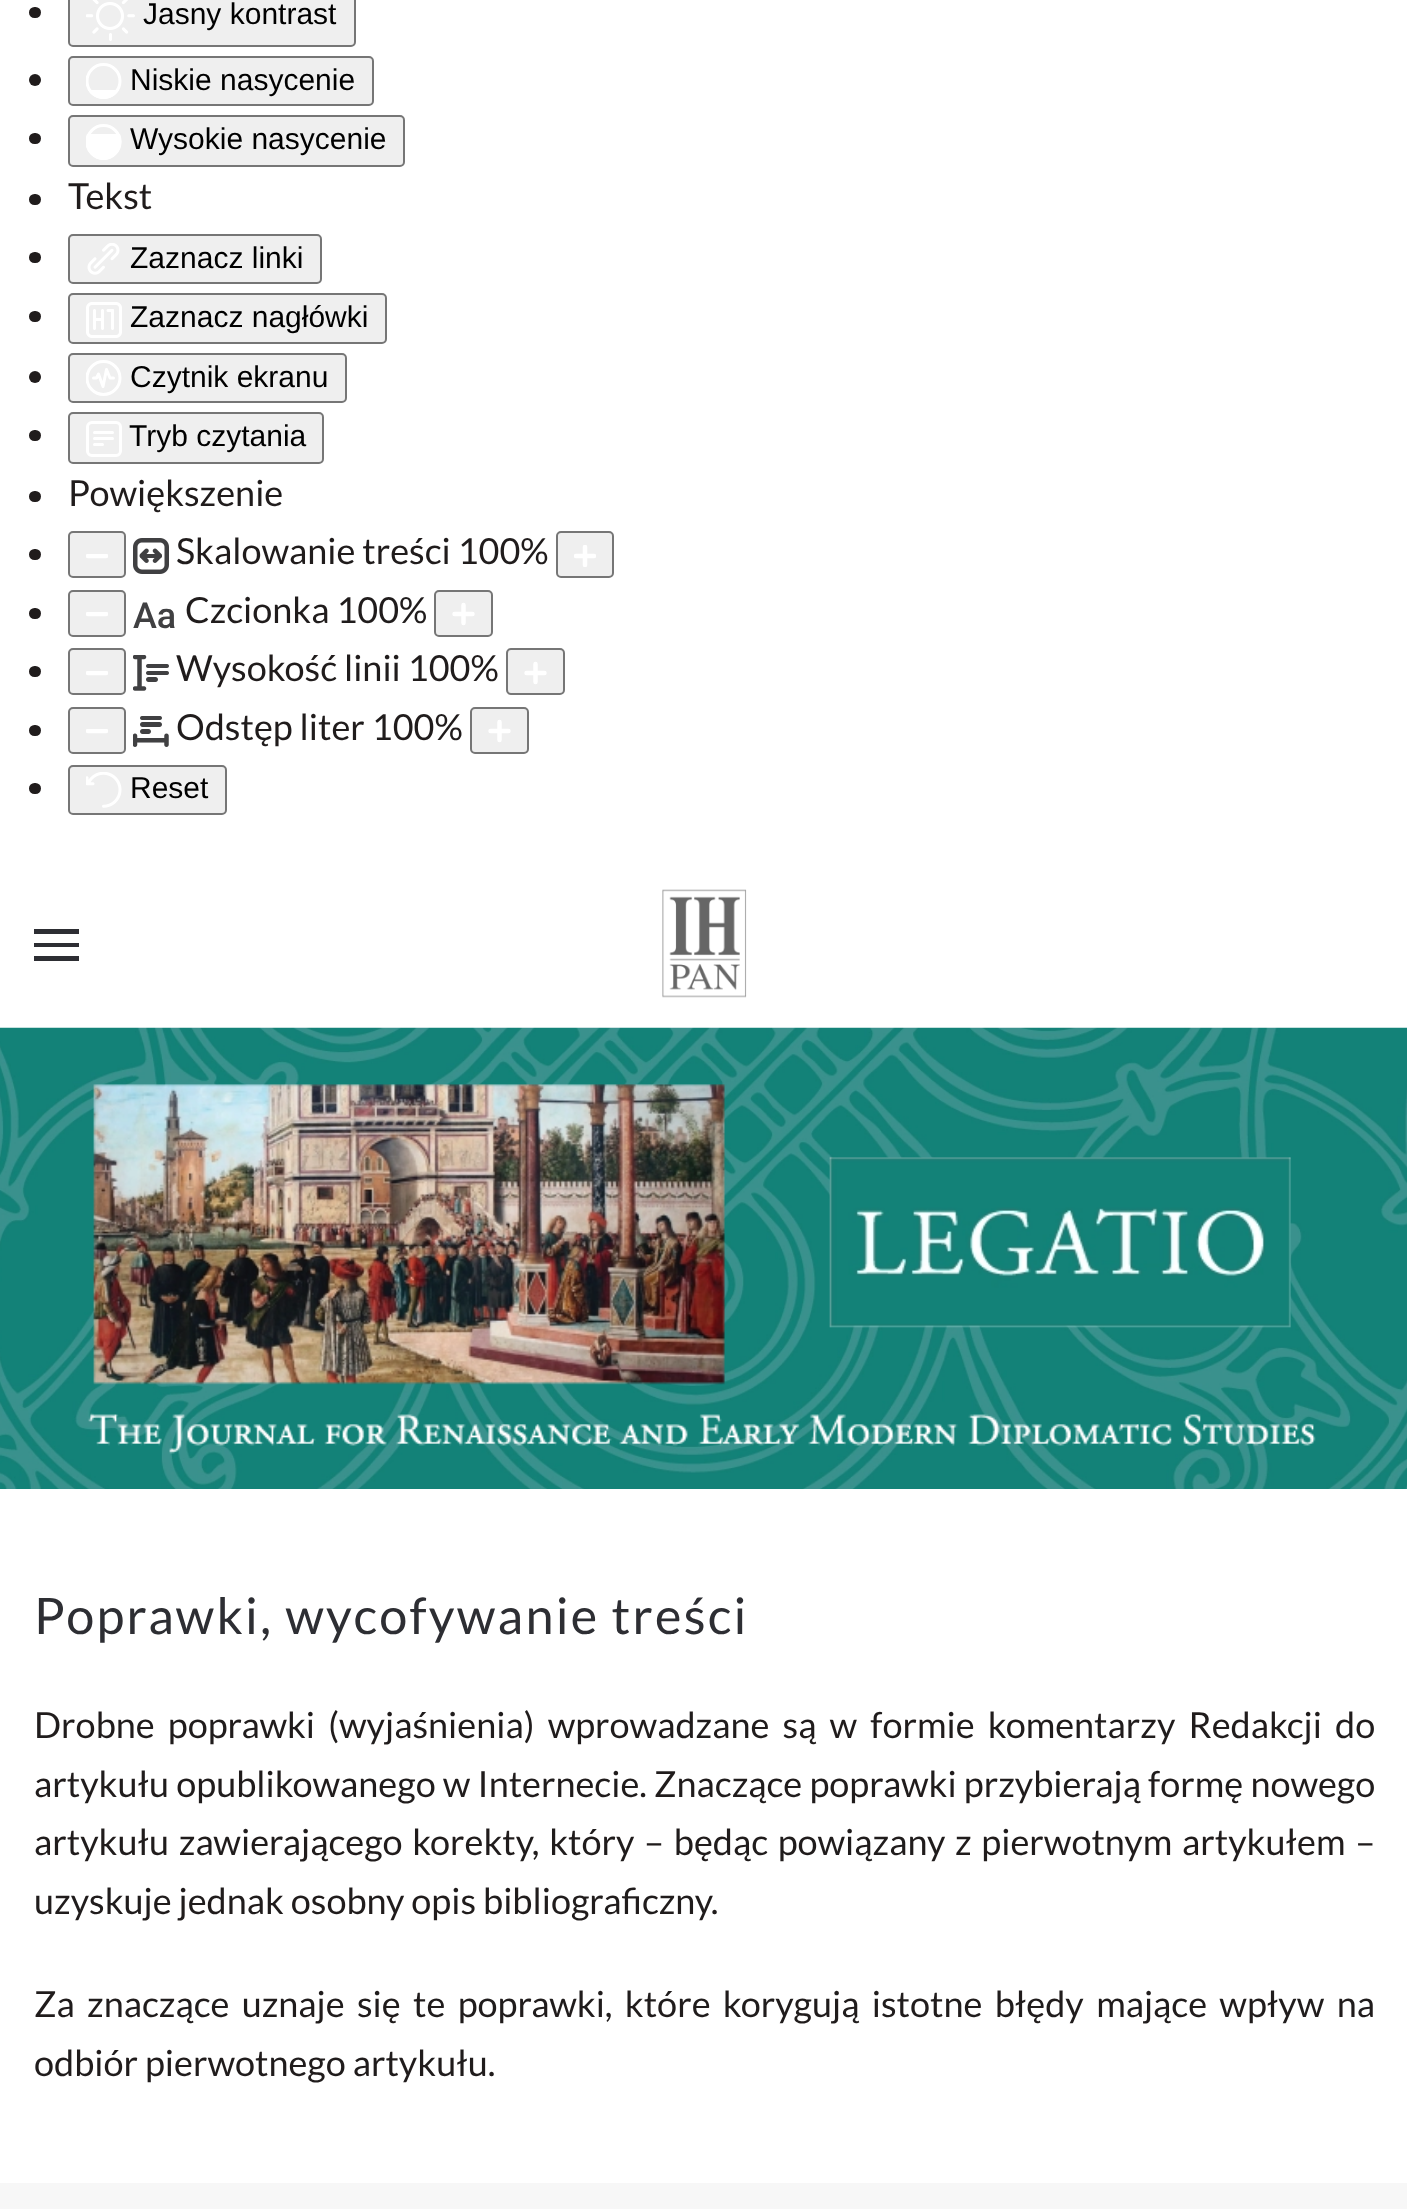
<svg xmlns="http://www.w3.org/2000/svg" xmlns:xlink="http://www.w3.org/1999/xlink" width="1407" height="2209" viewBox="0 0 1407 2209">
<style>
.cls-1{font:30px Liberation Sans;fill:#000000}
.cls-2{font:36px Lato;fill:#201c1c}
.cls-3{font:500 36px Roboto;fill:#404042}
.cls-4{font:50.4px Lato;letter-spacing:2.25px;fill:#2d2e33}
</style>
<defs>
<clipPath id="clip1"><rect x="86" y="63" width="36" height="36"/></clipPath>
<clipPath id="clip2"><rect x="86" y="124" width="36" height="36"/></clipPath>
<clipPath id="clip3"><rect x="86" y="360" width="36" height="36"/></clipPath>
<clipPath id="clip4"><rect x="86" y="554" width="22" height="5"/></clipPath>
<clipPath id="clip5"><rect x="574" y="545" width="22" height="22"/></clipPath>
<clipPath id="clip6"><rect x="86" y="612" width="22" height="5"/></clipPath>
<clipPath id="clip7"><rect x="86" y="671" width="22" height="5"/></clipPath>
<clipPath id="clip8"><rect x="86" y="729" width="22" height="5"/></clipPath>
</defs>
<rect width="100%" height="100%" fill="#ffffff"/>
<rect fill="#201c1c" x="29" y="7" width="12" height="11" rx="5.5"/>
<rect fill="#efefef" stroke="#767676" stroke-width="2" x="69" y="-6" width="286" height="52" rx="4"/>
<image xlink:href="image0.png" x="86" y="0" width="49" height="41"/>
<circle fill="#201c1c" cx="35" cy="80" r="6"/>
<rect fill="#efefef" stroke="#767676" stroke-width="2" x="69" y="57" width="304" height="48" rx="4"/>
<g clip-path="url(#clip1)">
<circle fill="none" stroke="#ffffff" stroke-width="3" cx="103.5" cy="81" r="16.5"/>
</g>
<path fill="#ffffff" d="M103.5 99C97 99 91 95.5 88 90H119C116 95.5 110 99 103.5 99Z"/>
<rect fill="#201c1c" x="29" y="133" width="12" height="11" rx="5.5"/>
<rect fill="#efefef" stroke="#767676" stroke-width="2" x="69" y="116" width="335" height="50" rx="4"/>
<g clip-path="url(#clip2)">
<circle fill="none" stroke="#ffffff" stroke-width="3" cx="103.5" cy="142" r="16.5"/>
<path fill="#ffffff" d="M103.5 160C90.5 159.5 82 146 87 134H120C125 146 116.5 159.5 103.5 160Z"/>
</g>
<rect fill="#201c1c" x="29" y="194" width="12" height="11" rx="5.5"/>
<rect fill="#201c1c" x="29" y="252" width="12" height="11" rx="5.5"/>
<rect fill="#efefef" stroke="#767676" stroke-width="2" x="69" y="235" width="252" height="48" rx="4"/>
<image xlink:href="image1.png" x="87" y="243" width="33" height="32"/>
<rect fill="#201c1c" x="29" y="311" width="12" height="11" rx="5.5"/>
<rect fill="#efefef" stroke="#767676" stroke-width="2" x="69" y="294" width="317" height="49" rx="4"/>
<image xlink:href="image2.png" x="86" y="302" width="36" height="36"/>
<circle fill="#201c1c" cx="35" cy="377" r="6"/>
<rect fill="#efefef" stroke="#767676" stroke-width="2" x="69" y="354" width="277" height="48" rx="4"/>
<g clip-path="url(#clip3)">
<circle fill="none" stroke="#ffffff" stroke-width="3" cx="103.5" cy="378" r="16.5"/>
</g>
<path fill="none" stroke="#ffffff" stroke-width="3" stroke-linecap="round" stroke-linejoin="round" d="M93.5 378H96.5L98.5 374L103 386.5L106.5 369.5L110 378H113.5"/>
<rect fill="#201c1c" x="29" y="430" width="12" height="11" rx="5.5"/>
<rect fill="#efefef" stroke="#767676" stroke-width="2" x="69" y="413" width="254" height="50" rx="4"/>
<rect fill="none" stroke="#ffffff" stroke-width="3" x="87.5" y="422.5" width="33" height="33" rx="4.5"/>
<rect fill="#ffffff" x="93" y="431" width="21" height="3" rx="1.5"/>
<rect fill="#ffffff" x="93" y="437" width="21" height="3" rx="1.5"/>
<rect fill="#ffffff" x="93" y="443" width="11" height="3" rx="1.5"/>
<rect fill="#201c1c" x="29" y="491" width="12" height="11" rx="5.5"/>
<rect fill="#201c1c" x="29" y="549" width="12" height="11" rx="5.5"/>
<rect fill="#efefef" stroke="#767676" stroke-width="2" x="69" y="532" width="56" height="45" rx="4"/>
<g clip-path="url(#clip4)">
<path fill="none" stroke="#ffffff" stroke-width="4.5" stroke-linecap="round" d="M106 556H88"/>
</g>
<image xlink:href="image3.png" x="133" y="538" width="36" height="36"/>
<rect fill="#efefef" stroke="#767676" stroke-width="2" x="557" y="532" width="56" height="45" rx="4"/>
<g clip-path="url(#clip5)">
<path fill="none" stroke="#ffffff" stroke-width="4.5" stroke-linecap="round" d="M585 547V565M594 556H576"/>
</g>
<rect fill="#201c1c" x="29" y="608" width="12" height="11" rx="5.5"/>
<rect fill="#efefef" stroke="#767676" stroke-width="2" x="69" y="591" width="56" height="45" rx="4"/>
<g clip-path="url(#clip6)">
<path fill="none" stroke="#ffffff" stroke-width="4.5" stroke-linecap="round" d="M106 614H88"/>
</g>
<rect fill="#efefef" stroke="#767676" stroke-width="2" x="435" y="591" width="57" height="45" rx="4"/>
<path fill="none" stroke="#ffffff" stroke-width="4.5" stroke-linecap="round" d="M463.5 605V623M472.5 614H454.5"/>
<rect fill="#201c1c" x="29" y="666" width="12" height="11" rx="5.5"/>
<rect fill="#efefef" stroke="#767676" stroke-width="2" x="69" y="649" width="56" height="45" rx="4"/>
<g clip-path="url(#clip7)">
<path fill="none" stroke="#ffffff" stroke-width="4.5" stroke-linecap="round" d="M106 673H88"/>
</g>
<image xlink:href="image4.png" x="133" y="655" width="36" height="36"/>
<rect fill="#efefef" stroke="#767676" stroke-width="2" x="507" y="649" width="57" height="45" rx="4"/>
<path fill="none" stroke="#ffffff" stroke-width="4.5" stroke-linecap="round" d="M535.5 664V682M544.5 673H526.5"/>
<rect fill="#201c1c" x="29" y="725" width="12" height="11" rx="5.5"/>
<rect fill="#efefef" stroke="#767676" stroke-width="2" x="69" y="708" width="56" height="45" rx="4"/>
<g clip-path="url(#clip8)">
<path fill="none" stroke="#ffffff" stroke-width="4.5" stroke-linecap="round" d="M106 731H88"/>
</g>
<image xlink:href="image5.png" x="133" y="716" width="36" height="31"/>
<rect fill="#efefef" stroke="#767676" stroke-width="2" x="471" y="708" width="57" height="45" rx="4"/>
<path fill="none" stroke="#ffffff" stroke-width="4.5" stroke-linecap="round" d="M499.5 722V740M508.5 731H490.5"/>
<rect fill="#201c1c" x="29" y="783" width="12" height="11" rx="5.5"/>
<rect fill="#efefef" stroke="#767676" stroke-width="2" x="69" y="766" width="157" height="48" rx="4"/>
<image xlink:href="image6.png" x="86" y="772" width="36" height="36"/>
<rect fill="#2d2e33" x="34" y="929" width="45" height="5"/>
<rect fill="#2d2e33" x="34" y="943" width="45" height="4"/>
<rect fill="#2d2e33" x="34" y="956" width="45" height="5"/>
<image xlink:href="image7.png" x="662" y="889" width="85" height="109"/>
<image xlink:href="image8.png" x="0" y="1027" width="1407" height="462"/>
<image xlink:href="image9.png" x="88" y="1084" width="1228" height="370"/>
<rect fill="#f7f7f7" x="0" y="2183" width="1407" height="26"/>
<text class="cls-1" x="143" y="24">Jasny kontrast</text>
<text class="cls-1"><tspan x="130" y="90">Niskie nasycenie</tspan><tspan x="130" y="149">Wysokie nasycenie</tspan></text>
<text class="cls-2" x="68" y="209">Tekst</text>
<text class="cls-1"><tspan x="130" y="268">Zaznacz linki</tspan><tspan x="130" y="327">Zaznacz nagłówki</tspan></text>
<text class="cls-1" x="130" y="387">Czytnik ekranu</text>
<text class="cls-1" x="129" y="446">Tryb czytania</text>
<text class="cls-2" x="68" y="506">Powiększenie</text>
<text class="cls-2" x="176" y="564">Skalowanie treści 100%</text>
<text class="cls-3" x="133" y="628">Aa</text>
<text class="cls-2" x="185" y="623">Czcionka 100%</text>
<text class="cls-2"><tspan x="176" y="681">Wysokość linii 100%</tspan><tspan x="176" y="740">Odstęp liter 100%</tspan></text>
<text class="cls-1" x="130" y="798">Reset</text>
<text class="cls-4" x="34" y="1634">Poprawki, wycofywanie treści</text>
<text class="cls-2"><tspan x="34" y="1738" word-spacing="6.25">Drobne poprawki (wyjaśnienia) wprowadzane są w formie komentarzy Redakcji do</tspan><tspan x="34" y="1797" word-spacing="0.25">artykułu opublikowanego w Internecie. Znaczące poprawki przybierają formę nowego</tspan><tspan x="34" y="1855" word-spacing="2.75">artykułu zawierającego korekty, który – będąc powiązany z pierwotnym artykułem –</tspan><tspan x="34" y="1914">uzyskuje jednak osobny opis bibliograficzny.</tspan></text>
<text class="cls-2"><tspan x="34" y="2017" word-spacing="5.4">Za znaczące uznaje się te poprawki, które korygują istotne błędy mające wpływ na</tspan><tspan x="34" y="2076">odbiór pierwotnego artykułu.</tspan></text>
</svg>
